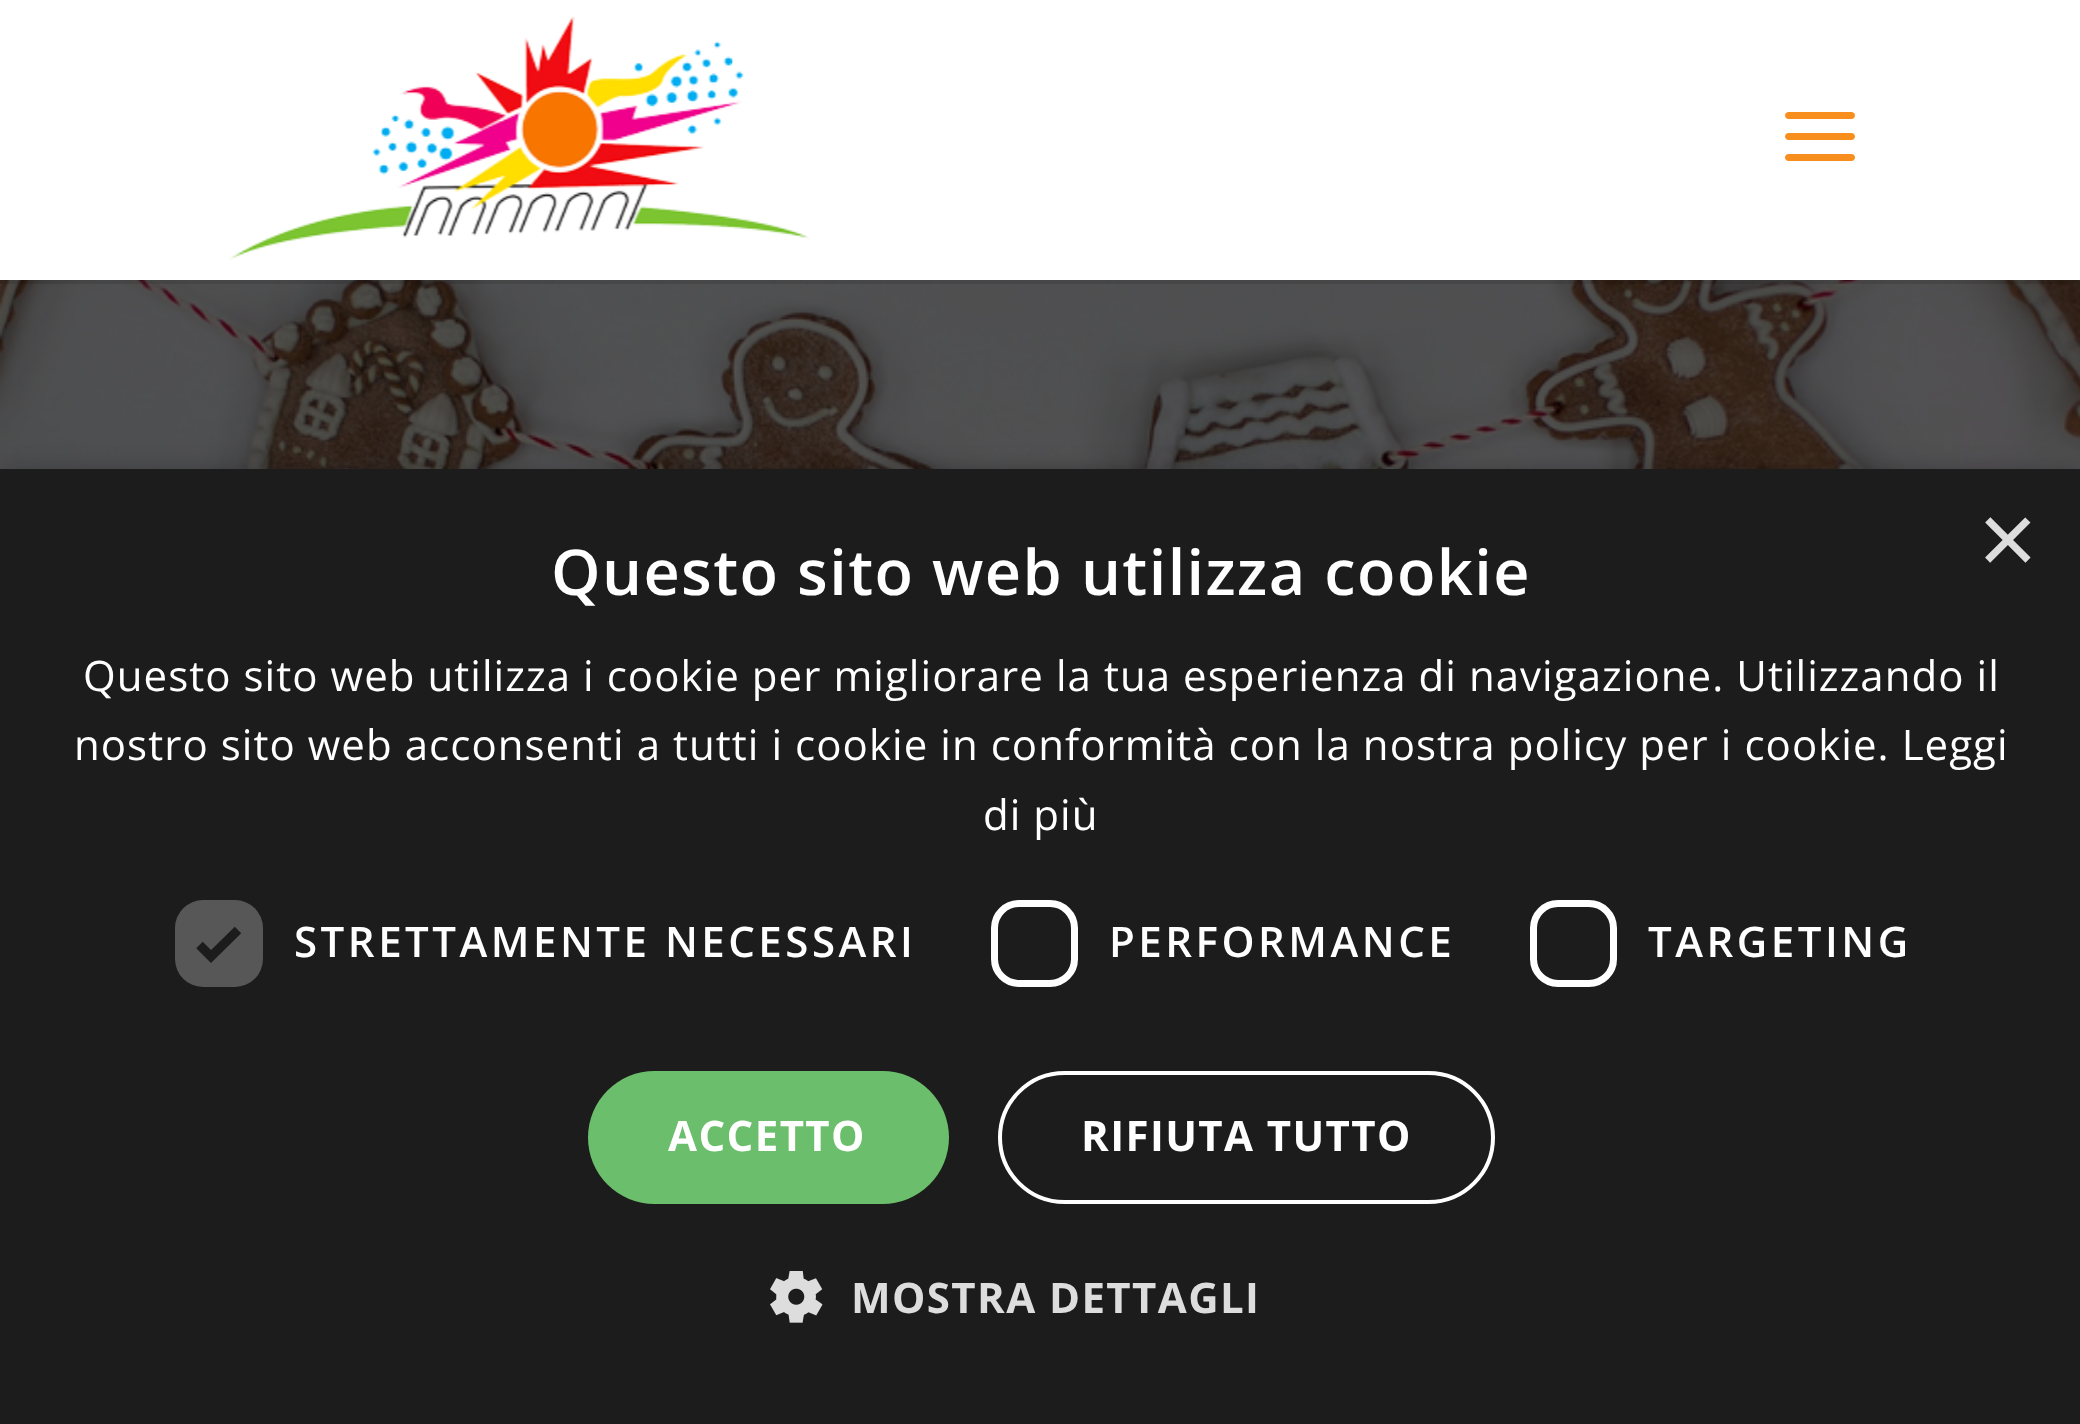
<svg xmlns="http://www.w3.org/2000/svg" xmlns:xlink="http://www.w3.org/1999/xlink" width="2080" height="1424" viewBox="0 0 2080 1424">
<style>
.cls-1{font:102px Liberation Sans;fill:#dddddd}
.cls-2{font:600 63px Open Sans;letter-spacing:1.4px;fill:#ffffff}
.cls-3{font:42px Open Sans;letter-spacing:1.05px;fill:#ffffff}
.cls-4{font:600 42px Open Sans;letter-spacing:3.5px;fill:#ffffff}
.cls-5{font:bold 42px Open Sans;letter-spacing:1.4px;fill:#ffffff}
.cls-6{font:bold 42px Open Sans;letter-spacing:1.4px;fill:#dddddd}
</style>
<rect width="100%" height="100%" fill="#ffffff"/>
<image xlink:href="image2.png" x="0" y="280" width="2080" height="189"/>
<path fill="#000000" fill-opacity="0.1" d="M0 280V284H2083V4H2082V280Z"/>
<image xlink:href="image0.png" x="229" y="16" width="581" height="244"/>
<image xlink:href="image1.png" x="1785" y="112" width="70" height="49"/>
<rect fill="#000000" fill-opacity="0.35" filter="blur(14px)" x="4" y="476" width="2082" height="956"/>
<rect fill="#1c1c1c" x="0" y="469" width="2080" height="955"/>
<rect fill="#575757" x="175" y="900" width="88" height="87" rx="28"/>
<path fill="none" stroke="#1c1c1c" stroke-width="9.2" d="M199.5 945L211 956.5L238 930"/>
<rect fill="none" stroke="#ffffff" stroke-width="7" x="994.5" y="903.5" width="80" height="80" rx="24.5"/>
<rect fill="none" stroke="#ffffff" stroke-width="7" x="1533.5" y="903.5" width="80" height="80" rx="24.5"/>
<rect fill="#6bbe6b" x="588" y="1071" width="361" height="133" rx="66.5"/>
<rect fill="none" stroke="#ffffff" stroke-width="4" x="1000" y="1073" width="493" height="129" rx="64.5"/>
<image xlink:href="image3.png" x="770" y="1271" width="53" height="52"/>
<text class="cls-1" x="1978" y="574">×</text>
<text class="cls-2" x="551" y="595">Questo sito web utilizza cookie</text>
<text class="cls-3" x="83" y="691">Questo sito web utilizza i cookie per migliorare la tua esperienza di navigazione. Utilizzando il</text>
<text class="cls-3" x="74" y="760">nostro sito web acconsenti a tutti i cookie in conformità con la nostra policy per i cookie. Leggi</text>
<text class="cls-3" x="983" y="830">di più</text>
<text class="cls-4" x="294" y="957">STRETTAMENTE NECESSARI</text>
<text class="cls-4" x="1109" y="957">PERFORMANCE</text>
<text class="cls-4" x="1648" y="957">TARGETING</text>
<text class="cls-5" x="668" y="1151">ACCETTO</text>
<text class="cls-5" x="1081" y="1151">RIFIUTA TUTTO</text>
<text class="cls-6" x="851" y="1313">MOSTRA DETTAGLI</text>
</svg>
